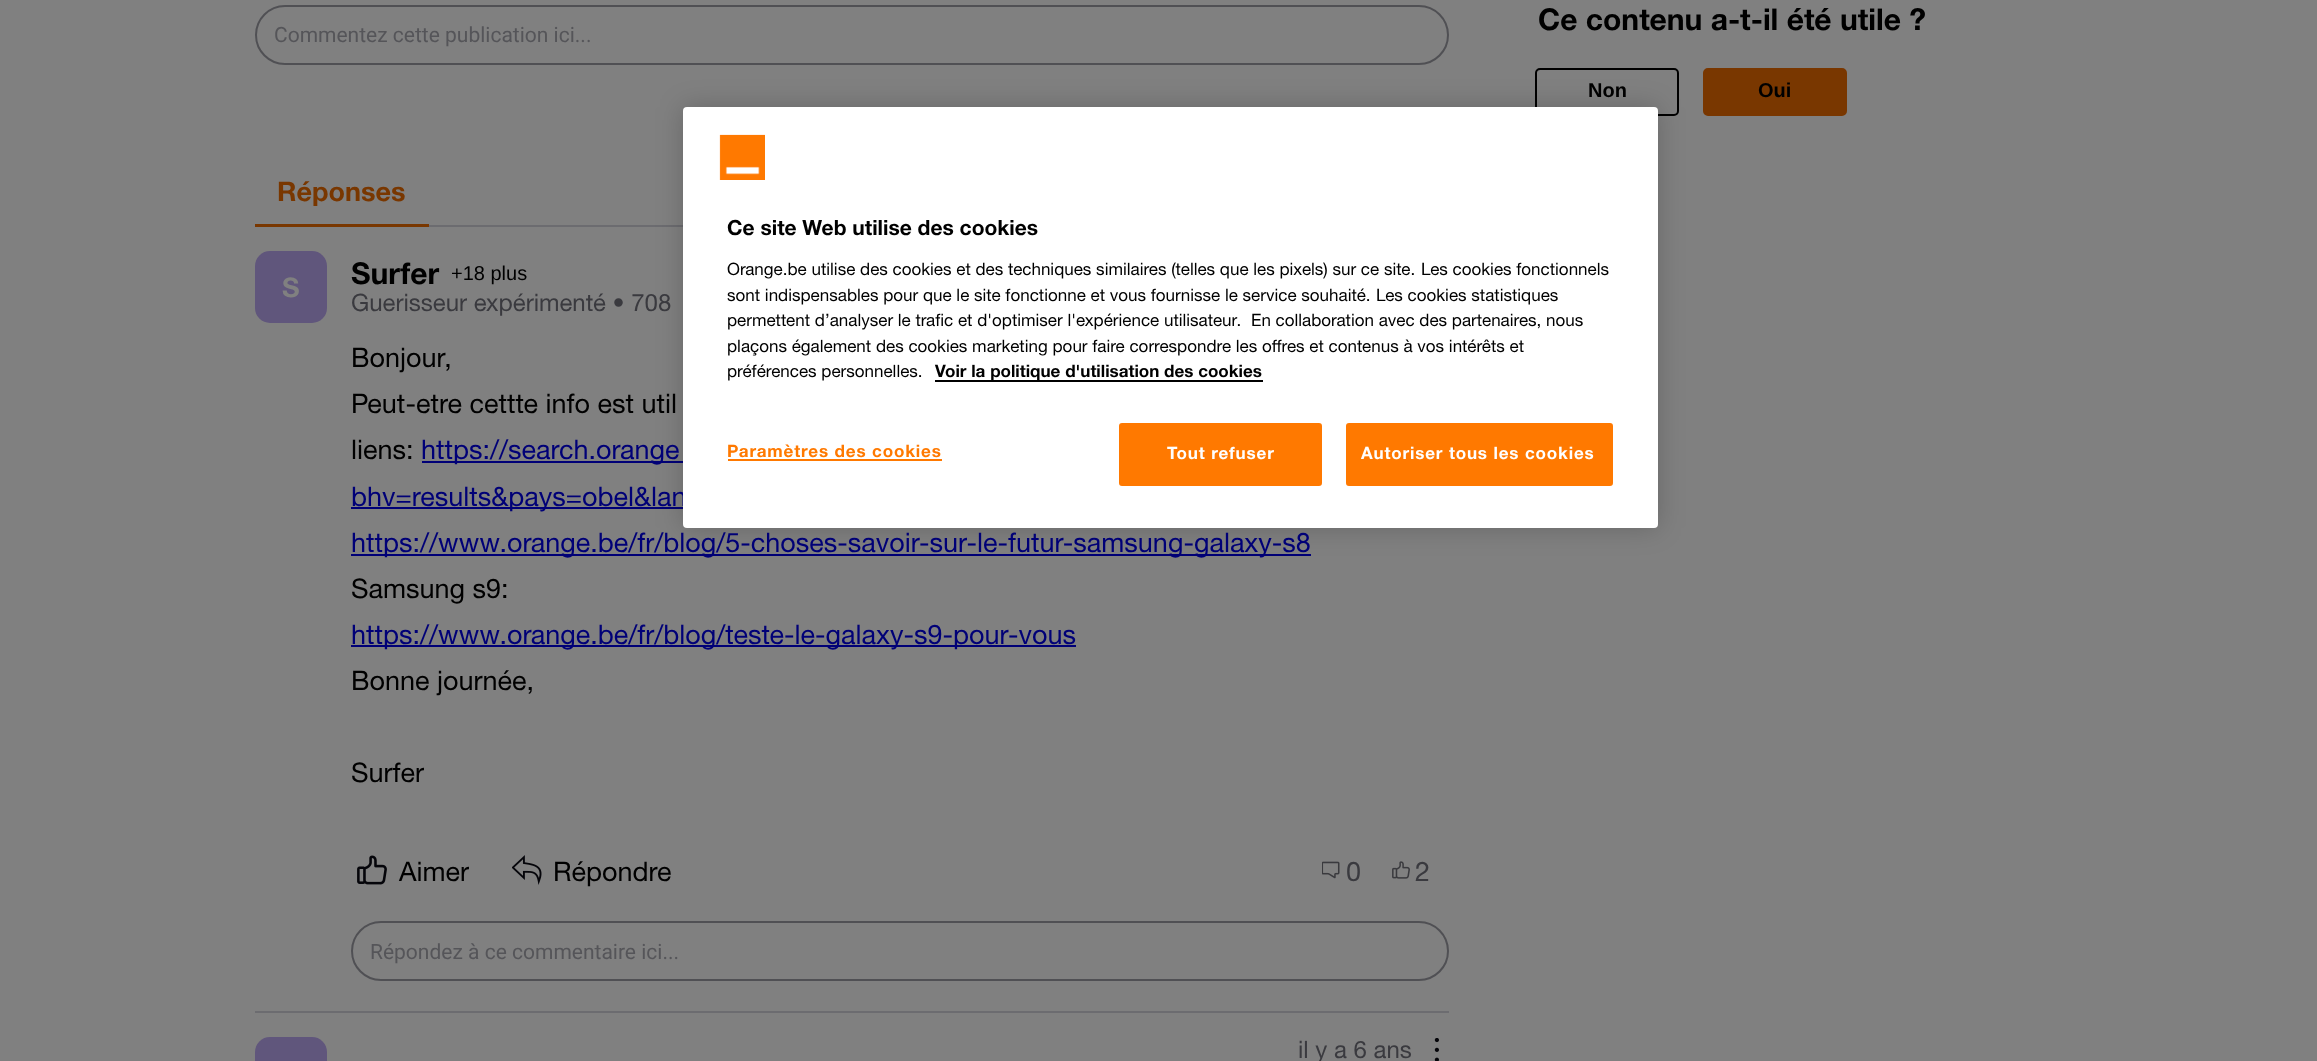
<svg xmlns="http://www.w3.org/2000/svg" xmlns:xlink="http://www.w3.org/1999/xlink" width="2317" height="1061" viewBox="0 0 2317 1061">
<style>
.cls-1{font:21px Roboto;fill:#555559}
.cls-2{font:bold 27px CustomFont;fill:#793700}
.cls-3{font:bold 27px CustomFont;fill:#808080}
.cls-4{font:bold 30px CustomFont;fill:#000000}
.cls-5{font:20px Liberation Sans;fill:#000000}
.cls-6{font:24px CustomFont;fill:#3a3a3f}
.cls-7{font:27px CustomFont;fill:#000000}
.cls-8{font:27px CustomFont;fill:#000077}
.cls-9{font:27px CustomFont;fill:#3a3a3f}
.cls-10{font:bold 20px Liberation Sans;fill:#000000}
.cls-11{font:bold 21px CustomFont;fill:#000000}
.cls-12{font:17.05px CustomFont;fill:#000000}
.cls-13{font:bold 17.05px CustomFont;fill:#000000}
.cls-14{font:bold 17.05px CustomFont;letter-spacing:0.85px;fill:#ff7900}
.cls-15{font:bold 17.05px CustomFont;letter-spacing:0.85px;fill:#ffffff}
</style>
<rect width="100%" height="100%" fill="#808080"/>
<rect fill="none" stroke="#505054" stroke-width="2" x="256" y="6" width="1192" height="58" rx="29"/>
<rect fill="#6c6c70" x="429" y="225" width="254" height="2"/>
<rect fill="#793700" x="255" y="224" width="174" height="3"/>
<rect fill="#6c6c70" x="255" y="1011" width="1194" height="2"/>
<rect fill="#60567c" x="255" y="251" width="72" height="72" rx="15"/>
<rect fill="#000077" x="422" y="461" width="261" height="2"/>
<rect fill="#000077" x="351" y="507" width="332" height="2"/>
<rect fill="#000077" x="351" y="554" width="960" height="2"/>
<rect fill="#000077" x="351" y="645" width="725" height="2"/>
<image xlink:href="image0.png" x="357" y="855" width="30" height="30"/>
<image xlink:href="image1.png" x="512" y="855" width="30" height="30"/>
<image xlink:href="image2.png" x="1322" y="861" width="18" height="18"/>
<image xlink:href="image3.png" x="1392" y="861" width="18" height="18"/>
<rect fill="none" stroke="#505054" stroke-width="2" x="352" y="922" width="1096" height="58" rx="29"/>
<rect fill="#60567c" x="255" y="1037" width="72" height="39" rx="15"/>
<image xlink:href="image4.png" x="1434" y="1038" width="5" height="23"/>
<rect fill="none" stroke="#000000" stroke-width="2" x="1536" y="69" width="142" height="46" rx="4"/>
<rect fill="#793700" stroke="#793700" stroke-width="2" x="1704" y="69" width="142" height="46" rx="4"/>
<rect fill="#000000" fill-opacity="0.2" filter="blur(13.5px)" x="683" y="107" width="975" height="421" rx="4"/>
<text class="cls-1" x="274" y="42">Commentez cette publication ici...</text>
<text class="cls-2" x="277" y="201">Réponses</text>
<text class="cls-3" x="282" y="297">S</text>
<text class="cls-4" x="351" y="284">Surfer</text>
<text class="cls-5" x="451" y="280">+18 plus</text>
<text class="cls-6" x="351" y="311">Guerisseur expérimenté • 708</text>
<text class="cls-7"><tspan x="351" y="367">Bonjour,</tspan><tspan x="351" y="413">Peut-etre cettte info est util</tspan><tspan x="351" y="459">liens:</tspan></text>
<text class="cls-8" x="421" y="459">https://search.orange</text>
<text class="cls-8"><tspan x="351" y="506">bhv=results&amp;pays=obel&amp;lan</tspan><tspan x="351" y="552">https://www.orange.be/fr/blog/5-choses-savoir-sur-le-futur-samsung-galaxy-s8</tspan></text>
<text class="cls-7" x="351" y="598">Samsung s9:</text>
<text class="cls-8" x="351" y="644">https://www.orange.be/fr/blog/teste-le-galaxy-s9-pour-vous</text>
<text class="cls-7" x="351" y="690">Bonne journée,</text>
<text class="cls-7" x="351" y="782">Surfer</text>
<text class="cls-7" x="399" y="881">Aimer</text>
<text class="cls-7" x="553" y="881">Répondre</text>
<text class="cls-9" x="1346" y="881">0</text>
<text class="cls-9" x="1415" y="881">2</text>
<text class="cls-1" x="370" y="959">Répondez à ce commentaire ici...</text>
<text class="cls-6" x="1298" y="1058">il y a 6 ans</text>
<text class="cls-4" x="1538" y="30">Ce contenu a-t-il été utile ?</text>
<text class="cls-10" x="1588" y="97">Non</text>
<text class="cls-10" x="1758" y="97">Oui</text>
<rect fill="#ffffff" x="683" y="107" width="975" height="421" rx="4"/>
<image xlink:href="image5.png" x="719" y="134" width="46" height="46"/>
<text class="cls-11" x="727" y="235">Ce site Web utilise des cookies</text>
<text class="cls-12" x="727" y="275">Orange.be utilise des cookies et des techniques similaires (telles que les pixels) sur ce site.</text>
<text class="cls-12" x="1421" y="275">Les cookies fonctionnels</text>
<text class="cls-12" x="727" y="301">sont indispensables pour que le site fonctionne et vous fournisse le service souhaité.</text>
<text class="cls-12" x="1376" y="301">Les cookies statistiques</text>
<text class="cls-12" x="727" y="326">permettent d’analyser le trafic et d'optimiser l'expérience utilisateur.</text>
<text class="cls-12" x="1251" y="326">En collaboration avec des partenaires, nous</text>
<text class="cls-12"><tspan x="727" y="352">plaçons également des cookies marketing pour faire correspondre les offres et contenus à vos intérêts et</tspan><tspan x="727" y="377">préférences personnelles.</tspan></text>
<rect fill="#000000" x="935" y="380" width="328" height="2"/>
<text class="cls-13" x="935" y="377">Voir la politique d'utilisation des cookies</text>
<text class="cls-14" x="727" y="457">Paramètres des cookies</text>
<rect fill="#ff7900" x="728" y="459" width="214" height="2"/>
<rect fill="#ff7900" stroke="#ff7900" stroke-width="2" x="1120" y="424" width="201" height="61" rx="2"/>
<text class="cls-15" x="1167" y="459">Tout refuser</text>
<rect fill="#ff7900" stroke="#ff7900" stroke-width="2" x="1347" y="424" width="265" height="61" rx="2"/>
<text class="cls-15" x="1361" y="459">Autoriser tous les cookies</text>
</svg>
